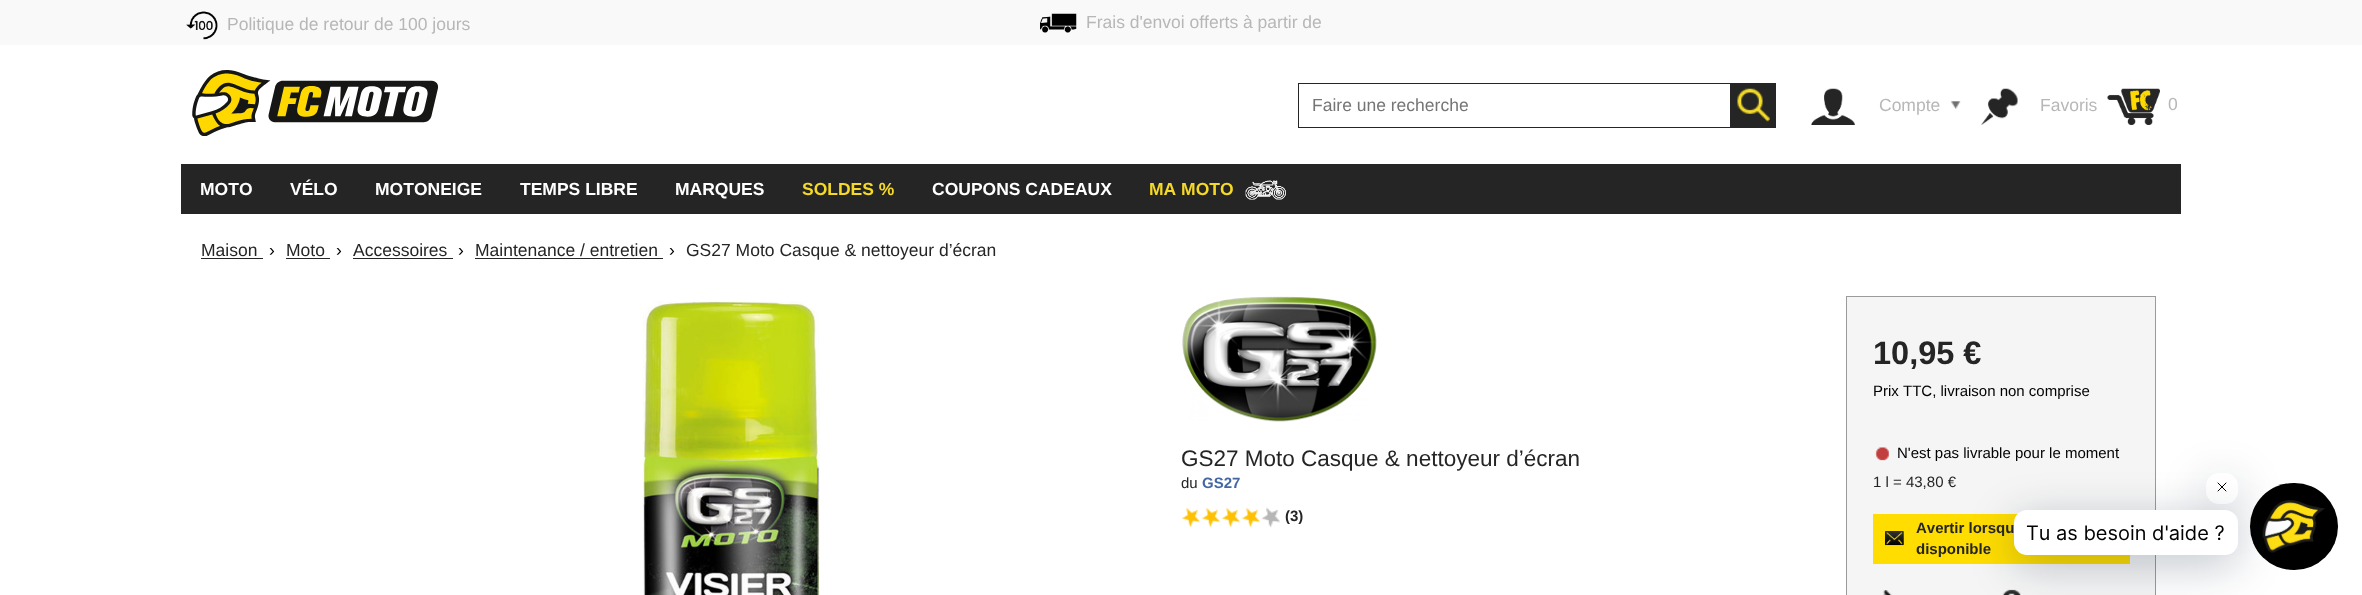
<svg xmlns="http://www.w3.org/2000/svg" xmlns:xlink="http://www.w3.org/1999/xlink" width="2362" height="595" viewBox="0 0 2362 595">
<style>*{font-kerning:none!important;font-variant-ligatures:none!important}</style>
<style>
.cls-1{font:17.5px Liberation Sans;fill:#b7b7b7}
.cls-2{font:17.5px Liberation Sans;fill:#757575}
.cls-3{font:bold 17.5px Liberation Sans;fill:#ffffff}
.cls-4{font:bold 17.5px Liberation Sans;fill:#f4d928}
.cls-5{font:17.5px Liberation Sans;fill:#252525}
.cls-6{font:17.5px Liberation Sans;fill:#000000}
.cls-7{font:22.5px Liberation Sans;fill:#252525}
.cls-8{font:15px Liberation Sans;fill:#252525}
.cls-9{font:bold 15px Liberation Sans;fill:#4467a4}
.cls-10{font:bold 15px Liberation Sans;fill:#252525}
.cls-11{font:bold 32.5px Liberation Sans;fill:#252525}
.cls-12{font:15px Liberation Sans;fill:#000000}
.cls-13{font:20px Inter;fill:#000000}
</style>
<rect width="100%" height="100%" fill="#ffffff"/>
<rect fill="#faf9f9" x="0" y="0" width="2362" height="45"/>
<image xlink:href="image0.png" x="186" y="11" width="32" height="29"/>
<image xlink:href="image1.png" x="1040" y="13" width="37" height="20"/>
<image xlink:href="image2.png" x="192" y="70" width="247" height="66"/>
<rect fill="none" stroke="#252525" x="1298.5" y="83.5" width="432" height="44"/>
<rect fill="#252525" x="1731" y="83" width="45" height="45"/>
<image xlink:href="image3.png" x="1737" y="88" width="33" height="34"/>
<image xlink:href="image4.png" x="1811" y="88" width="44" height="37"/>
<image xlink:href="image5.png" x="1951" y="101" width="10" height="8"/>
<image xlink:href="image6.png" x="1981" y="88" width="37" height="37"/>
<image xlink:href="image7.png" x="2107" y="88" width="53" height="37"/>
<rect fill="#252525" x="181" y="164" width="2000" height="50"/>
<image xlink:href="image8.png" x="1245" y="180" width="41" height="20"/>
<rect fill="#252525" x="201" y="258" width="62" height="1"/>
<rect fill="#252525" x="286" y="258" width="44" height="1"/>
<rect fill="#252525" x="353" y="258" width="100" height="1"/>
<rect fill="#252525" x="475" y="258" width="188" height="1"/>
<image xlink:href="image9.png" x="642" y="301" width="178" height="294"/>
<image xlink:href="image10.png" x="1182" y="296" width="195" height="126"/>
<image xlink:href="image11.png" x="1181" y="507" width="99" height="21"/>
<rect fill="#f5f5f5" stroke="#9b9b9b" x="1846.5" y="296.5" width="309" height="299"/>
<image xlink:href="image12.png" x="1875" y="447" width="14" height="14"/>
<rect fill="#ffdd00" x="1873" y="514" width="257" height="50"/>
<image xlink:href="image13.png" x="1885" y="531" width="19" height="15"/>
<image xlink:href="image14.png" x="1883" y="590" width="9" height="5"/>
<image xlink:href="image15.png" x="2002" y="589" width="19" height="6"/>
<rect fill="#000000" x="2250" y="483" width="88" height="87" rx="43.5"/>
<image xlink:href="image16.png" x="2262" y="500" width="63" height="53"/>
<rect fill="#00122e" fill-opacity="0.25" filter="blur(22.5px)" x="2206" y="483" width="32" height="31" rx="13"/>
<rect fill="#ffffff" x="2206" y="473" width="32" height="31" rx="13"/>
<path fill="none" stroke="#000000" stroke-linecap="round" stroke-linejoin="round" d="M2218 491L2226 483M2218 483L2226 491"/>
<rect fill="#00122e" fill-opacity="0.25" filter="blur(22.5px)" x="2014" y="520" width="224" height="45" rx="13"/>
<rect fill="#ffffff" x="2014" y="510" width="224" height="45" rx="13"/>
<text class="cls-1" x="227" y="30">Politique de retour de 100 jours</text>
<text class="cls-1" x="1086" y="28">Frais d'envoi offerts à partir de</text>
<text class="cls-2" x="1312" y="111">Faire une recherche</text>
<text class="cls-1" x="1879" y="111">Compte</text>
<text class="cls-1" x="2040" y="111">Favoris</text>
<text class="cls-1" x="2168" y="110">0</text>
<text class="cls-3" x="200" y="195">MOTO</text>
<text class="cls-3" x="290" y="195">VÉLO</text>
<text class="cls-3" x="375" y="195">MOTONEIGE</text>
<text class="cls-3" x="520" y="195">TEMPS LIBRE</text>
<text class="cls-3" x="675" y="195">MARQUES</text>
<text class="cls-4" x="802" y="195">SOLDES %</text>
<text class="cls-3" x="932" y="195">COUPONS CADEAUX</text>
<text class="cls-4" x="1149" y="195">MA MOTO</text>
<text class="cls-5" x="201" y="256">Maison</text>
<text class="cls-6" x="269" y="256">›︎</text>
<text class="cls-5" x="286" y="256">Moto</text>
<text class="cls-6" x="336" y="256">›︎</text>
<text class="cls-5" x="353" y="256">Accessoires</text>
<text class="cls-6" x="458" y="256">›︎</text>
<text class="cls-5" x="475" y="256">Maintenance / entretien</text>
<text class="cls-6" x="669" y="256">›︎</text>
<text class="cls-5" x="686" y="256">GS27 Moto Casque &amp; nettoyeur d’écran</text>
<text class="cls-7" x="1181" y="466">GS27 Moto Casque &amp; nettoyeur d’écran</text>
<text class="cls-8" x="1181" y="488">du</text>
<text class="cls-9" x="1202" y="488">GS27</text>
<text class="cls-10" x="1285" y="521">(3)</text>
<text class="cls-11" x="1873" y="364">10,95 €</text>
<text class="cls-12" x="1873" y="396">Prix TTC, livraison non comprise</text>
<text class="cls-12" x="1897" y="458">N'est pas livrable pour le moment</text>
<text class="cls-8" x="1873" y="487">1 l = 43,80 €</text>
<text class="cls-10"><tspan x="1916" y="533">Avertir lorsqu</tspan><tspan x="1916" y="554">disponible</tspan></text>
<text class="cls-13" x="2026" y="540">Tu as besoin d'aide ?</text>
</svg>
